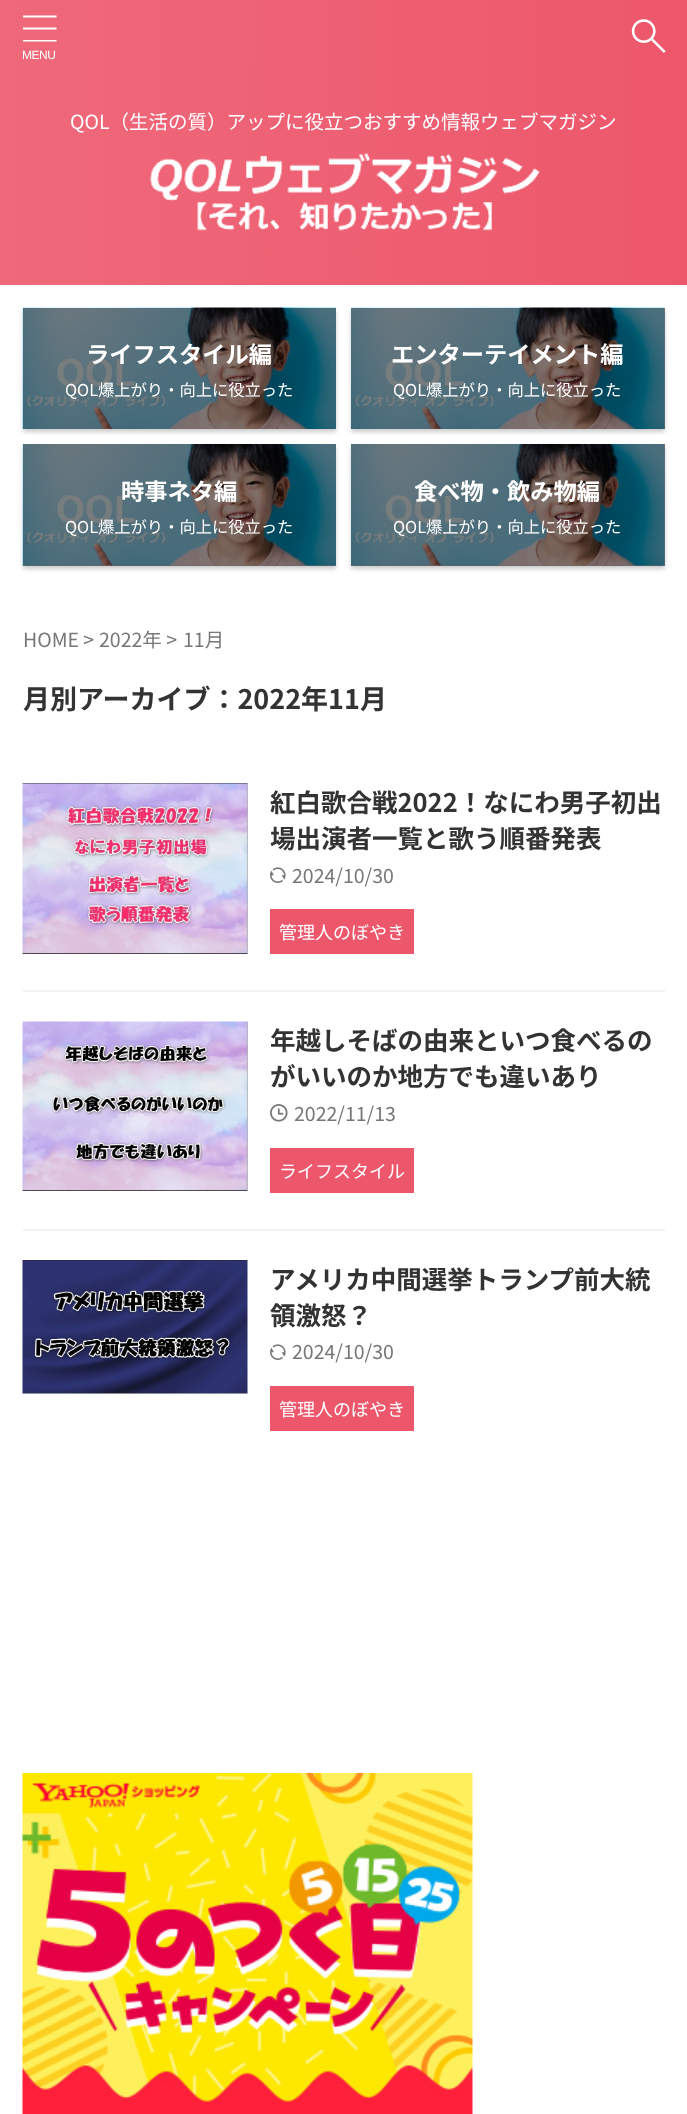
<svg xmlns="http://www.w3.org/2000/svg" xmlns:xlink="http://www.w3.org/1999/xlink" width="687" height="2114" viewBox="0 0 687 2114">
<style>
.cls-1{font:12px Liberation Sans;letter-spacing:-0.5px;fill:#ffffff}
.cls-2{font:19.5px Noto Sans JP;fill:#ffffff}
.cls-3{font:bold 23.25px Noto Sans JP;fill:#ffffff}
.cls-4{font:16.3px Noto Sans JP;fill:#ffffff}
.cls-5{font:19.5px Noto Sans JP;fill:#777777}
.cls-6{font:bold 27px Noto Sans JP;fill:#333333}
.cls-7{font:bold 25.5px Noto Sans JP;fill:#333333}
.cls-8{font:18px Noto Sans JP;fill:#ffffff}
</style>
<defs>
<linearGradient id="g1" gradientUnits="userSpaceOnUse" x1="687" y1="143" x2="0" y2="142"><stop offset="0" stop-color="#ed576b"/><stop offset="1" stop-color="#ef697b"/></linearGradient>
</defs>
<rect width="100%" height="100%" fill="#ffffff"/>
<rect fill="url(#g1)" x="0" y="0" width="687" height="285"/>
<image xlink:href="image0.png" x="631" y="19" width="35" height="34"/>
<path fill="#ffffff" d="M23 15.5H56.5V17.5H23ZM23 27.5H56.5V29.5H23ZM23 40H56.5V41.5H23Z"/>
<image xlink:href="image1.png" x="150" y="153" width="390" height="78"/>
<rect fill="#000000" fill-opacity="0.2" filter="blur(2px)" x="23" y="311" width="313" height="121"/>
<image xlink:href="image2.png" x="22" y="307" width="314" height="122"/>
<rect fill="#000000" fill-opacity="0.2" filter="blur(2px)" x="351" y="311" width="314" height="121"/>
<image xlink:href="image3.png" x="351" y="307" width="314" height="122"/>
<rect fill="#000000" fill-opacity="0.5" x="351" y="308" width="314" height="121"/>
<rect fill="#000000" fill-opacity="0.2" filter="blur(2px)" x="23" y="447" width="313" height="122"/>
<image xlink:href="image4.png" x="22" y="444" width="314" height="122"/>
<rect fill="#000000" fill-opacity="0.5" x="23" y="444" width="313" height="122"/>
<rect fill="#000000" fill-opacity="0.2" filter="blur(2px)" x="351" y="447" width="314" height="122"/>
<image xlink:href="image5.png" x="351" y="444" width="314" height="122"/>
<rect fill="#000000" fill-opacity="0.5" x="351" y="444" width="314" height="122"/>
<rect fill="#f3f3f3" x="23" y="990" width="642" height="2"/>
<image xlink:href="image6.png" x="22" y="783" width="226" height="171"/>
<image xlink:href="image7.png" x="270" y="867" width="16" height="16"/>
<rect fill="#ed576b" x="270" y="909" width="144" height="45"/>
<rect fill="#f3f3f3" x="23" y="1229" width="642" height="2"/>
<image xlink:href="image8.png" x="22" y="1021" width="226" height="170"/>
<image xlink:href="image9.png" x="270" y="1104" width="18" height="18"/>
<rect fill="#ed576b" x="270" y="1148" width="144" height="45"/>
<image xlink:href="image10.png" x="22" y="1260" width="226" height="134"/>
<image xlink:href="image7.png" x="270" y="1344" width="16" height="16"/>
<rect fill="#ed576b" x="270" y="1386" width="144" height="45"/>
<image xlink:href="image11.png" x="22" y="1773" width="451" height="341"/>
<text class="cls-1" x="22" y="59">MENU</text>
<text class="cls-2" x="70" y="129">QOL（生活の質）アップに役立つおすすめ情報ウェブマガジン</text>
<text class="cls-3" x="86" y="363">ライフスタイル編</text>
<text class="cls-4" x="65" y="396">QOL爆上がり・向上に役立った</text>
<text class="cls-3" x="391" y="363">エンターテイメント編</text>
<text class="cls-4" x="393" y="396">QOL爆上がり・向上に役立った</text>
<text class="cls-3" x="121" y="500">時事ネタ編</text>
<text class="cls-4" x="65" y="533">QOL爆上がり・向上に役立った</text>
<text class="cls-3" x="414" y="500">食べ物・飲み物編</text>
<text class="cls-4" x="393" y="533">QOL爆上がり・向上に役立った</text>
<text class="cls-5" x="23" y="647">HOME &gt;</text>
<text class="cls-5" x="99" y="647">2022年 &gt;</text>
<text class="cls-5" x="183" y="647">11月</text>
<text class="cls-6" x="23" y="709">月別アーカイブ：2022年11月</text>
<text class="cls-7"><tspan x="270" y="812">紅白歌合戦2022！なにわ男子初出</tspan><tspan x="270" y="848">場出演者一覧と歌う順番発表</tspan></text>
<text class="cls-5" x="292" y="883">2024/10/30</text>
<text class="cls-8" x="279" y="939">管理人のぼやき</text>
<text class="cls-7"><tspan x="270" y="1050">年越しそばの由来といつ食べるの</tspan><tspan x="270" y="1086">がいいのか地方でも違いあり</tspan></text>
<text class="cls-5" x="294" y="1121">2022/11/13</text>
<text class="cls-8" x="279" y="1178">ライフスタイル</text>
<text class="cls-7"><tspan x="270" y="1289">アメリカ中間選挙トランプ前大統</tspan><tspan x="270" y="1325">領激怒？</tspan></text>
<text class="cls-5" x="292" y="1359">2024/10/30</text>
<text class="cls-8" x="279" y="1416">管理人のぼやき</text>
</svg>
